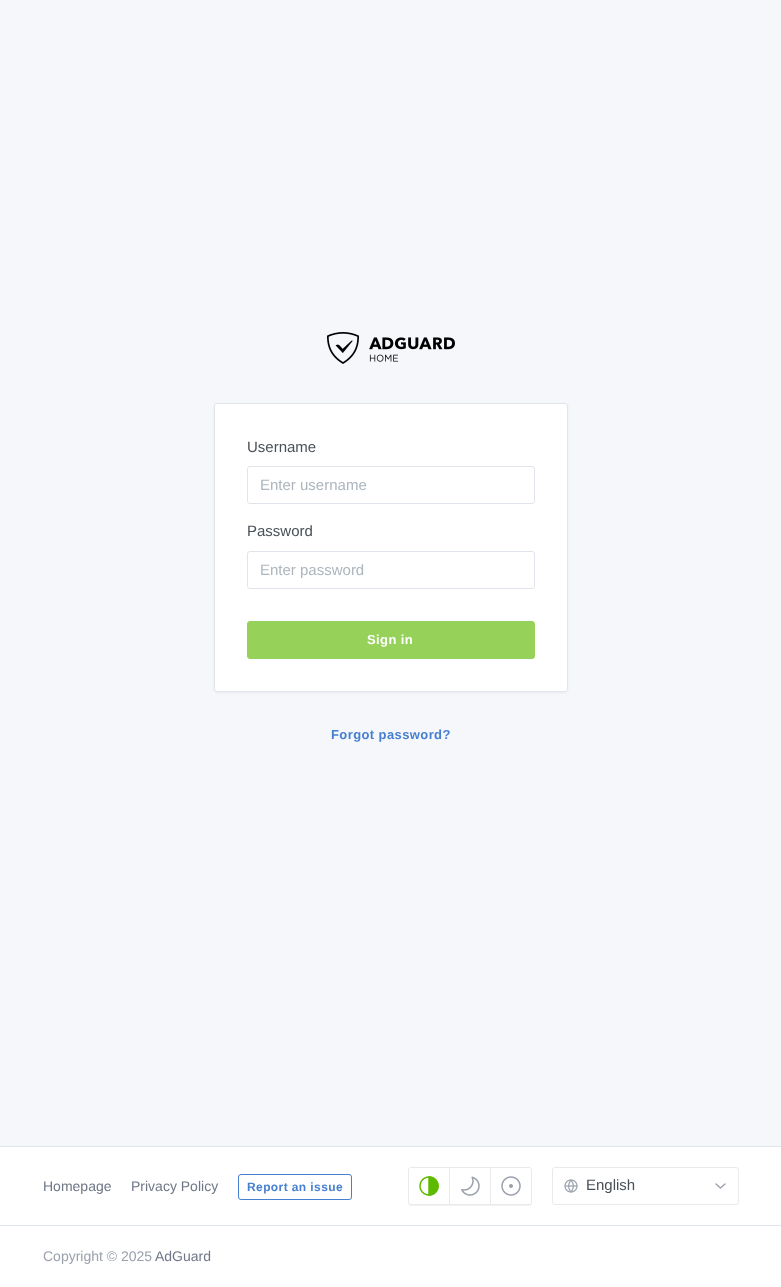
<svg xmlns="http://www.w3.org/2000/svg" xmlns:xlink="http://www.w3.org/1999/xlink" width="781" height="1287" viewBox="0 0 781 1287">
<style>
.cls-1{font:15px Liberation Sans;fill:#495057}
.cls-2{font:15px Liberation Sans;fill:#adb5bd}
.cls-3{font:bold 13px Liberation Sans;letter-spacing:0.4px;fill:#ffffff}
.cls-4{font:bold 13px Liberation Sans;letter-spacing:0.4px;fill:#467fcf}
.cls-5{font:14px Liberation Sans;fill:#6e7687}
.cls-6{font:bold 12px Liberation Sans;letter-spacing:0.4px;fill:#467fcf}
.cls-7{font:14px Liberation Sans;fill:#9aa0ac}
</style>
<rect width="100%" height="100%" fill="#f5f7fb"/>
<image xlink:href="image0.png" x="327" y="332" width="128" height="32"/>
<rect fill="#000000" fill-opacity="0.05" filter="blur(1px)" x="214" y="404" width="354" height="289" rx="3"/>
<rect fill="#ffffff" x="214" y="403" width="354" height="289" rx="3"/>
<rect fill="none" stroke="#002864" stroke-opacity="0.12" x="214.5" y="403.5" width="353" height="288" rx="2.5"/>
<rect fill="none" stroke="#e0e5ec" x="247.5" y="466.5" width="287" height="37" rx="2.5"/>
<rect fill="none" stroke="#e0e5ec" x="247.5" y="551.5" width="287" height="37" rx="2.5"/>
<rect fill="#96d259" stroke="#96d259" x="247.5" y="621.5" width="287" height="37" rx="2.5"/>
<rect fill="#ffffff" x="0" y="1147" width="781" height="78"/>
<rect fill="#e0e5ec" x="0" y="1146" width="781" height="1"/>
<rect fill="none" stroke="#467fcf" x="238.5" y="1174.5" width="113" height="25" rx="2.5"/>
<rect fill="#000000" fill-opacity="0.05" filter="blur(0.5px)" x="408" y="1168" width="42" height="38" rx="3"/>
<path fill="#ffffff" d="M411 1167H450V1205H411C409.5 1205 408 1203.5 408 1202V1170C408 1168.5 409.5 1167 411 1167Z"/>
<path fill="none" stroke="#454f5e" stroke-opacity="0.12" d="M411 1167.5H449.5V1204.5H411C409.5 1204.5 408.5 1203.5 408.5 1202V1170C408.5 1168.5 409.5 1167.5 411 1167.5Z"/>
<image xlink:href="image1.png" x="419" y="1176" width="20" height="20"/>
<rect fill="#000000" fill-opacity="0.05" filter="blur(0.5px)" x="449" y="1168" width="42" height="38"/>
<rect fill="#ffffff" stroke="#e9eaec" x="449.5" y="1167.5" width="41" height="37"/>
<image xlink:href="image2.png" x="461" y="1176" width="19" height="20"/>
<rect fill="#000000" fill-opacity="0.05" filter="blur(0.5px)" x="490" y="1168" width="42" height="38" rx="3"/>
<path fill="#ffffff" d="M490 1167H529C530.5 1167 532 1168.5 532 1170V1202C532 1203.5 530.5 1205 529 1205H490Z"/>
<path fill="none" stroke="#454f5e" stroke-opacity="0.12" d="M490.5 1167.5H529C530.5 1167.5 531.5 1168.5 531.5 1170V1202C531.5 1203.5 530.5 1204.5 529 1204.5H490.5Z"/>
<image xlink:href="image3.png" x="501" y="1176" width="20" height="20"/>
<path fill="none" stroke="#9aa0ac" stroke-width="1.4" stroke-linecap="round" stroke-linejoin="round" d="M716 1184L720.5 1188L725 1184"/>
<image xlink:href="image4.png" x="564" y="1179" width="14" height="14"/>
<rect fill="none" stroke="#e9eaec" x="552.5" y="1167.5" width="186" height="37" rx="2.5"/>
<rect fill="#ffffff" x="0" y="1226" width="781" height="61"/>
<rect fill="#e0e5ec" x="0" y="1225" width="781" height="1"/>
<text class="cls-1" x="247" y="452">Username</text>
<text class="cls-2" x="260" y="490">Enter username</text>
<text class="cls-1" x="247" y="536">Password</text>
<text class="cls-2" x="260" y="575">Enter password</text>
<text class="cls-3" x="367" y="644">Sign in</text>
<text class="cls-4" x="331" y="739">Forgot password?</text>
<text class="cls-5" x="43" y="1191">Homepage</text>
<text class="cls-5" x="131" y="1191">Privacy Policy</text>
<text class="cls-6" x="247" y="1191">Report an issue</text>
<text class="cls-1" x="586" y="1190">English</text>
<text class="cls-7" x="43" y="1261">Copyright © 2025</text>
<text class="cls-5" x="155" y="1261">AdGuard</text>
</svg>
